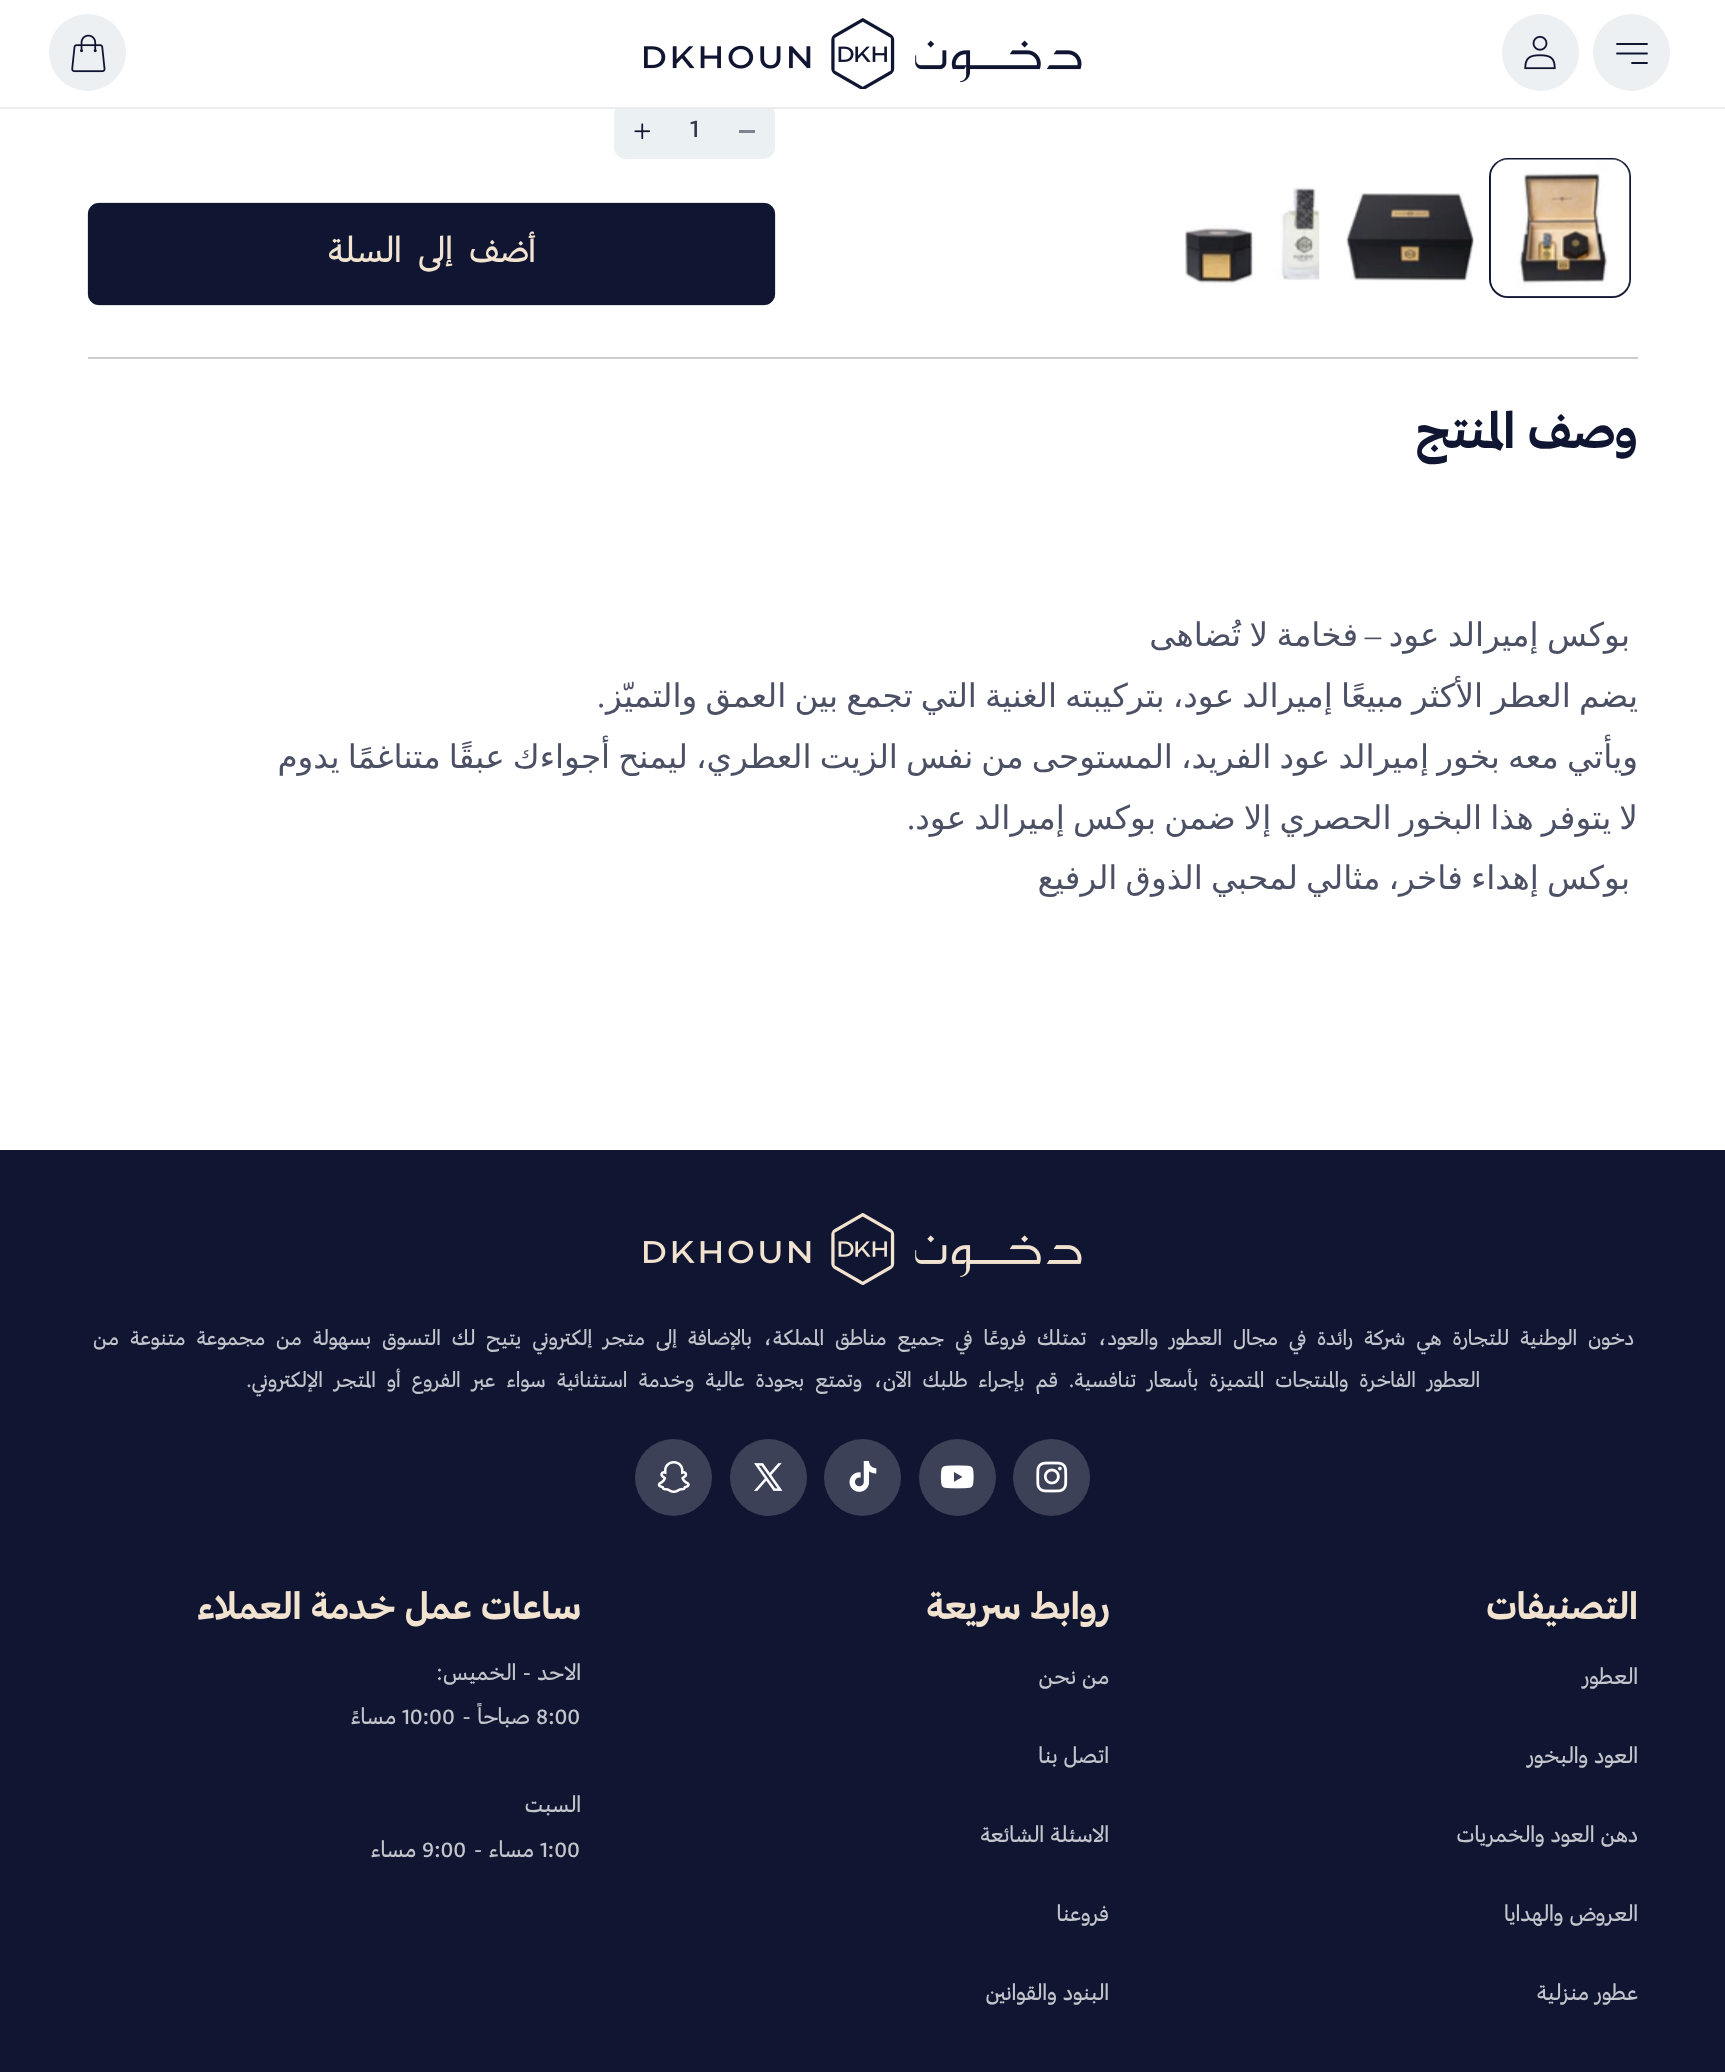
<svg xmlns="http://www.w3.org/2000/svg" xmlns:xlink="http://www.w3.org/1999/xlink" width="1725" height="2072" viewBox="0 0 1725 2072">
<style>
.cls-1{font:500 28px 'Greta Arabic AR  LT';fill:#31374e}
.cls-2{font:500 38.5px 'Greta Arabic AR  LT';direction:rtl;fill:#f2e3d0}
.cls-3{font:bold 54.5px 'Greta Arabic AR  LT';direction:rtl;fill:#101631}
.cls-4{font:32.65px DejaVu Sans;direction:rtl;fill:#4c5065}
.cls-5{font:32.65px Liberation Serif;direction:rtl;fill:#4c5065}
.cls-6{font:32.65px Liberation Serif;fill:#4c5065}
.cls-7{font:500 23.33px 'Greta Arabic AR  LT';direction:rtl;fill:#c3c5cc}
.cls-8{font:bold 41px 'Greta Arabic AR  LT';direction:rtl;fill:#f2e3d0}
.cls-9{font:500 24.5px 'Greta Arabic AR  LT';direction:rtl;fill:#c3c5cc}
.cls-10{font:500 24.5px 'Greta Arabic AR  LT';fill:#c3c5cc}
</style>
<rect width="100%" height="100%" fill="#ffffff"/>
<rect fill="#ebf0f2" x="614" y="103" width="161" height="56" rx="12"/>
<rect fill="#ffffff" x="617" y="103" width="155" height="4"/>
<rect fill="#ececef" x="0" y="107" width="1725" height="2"/>
<circle fill="#ecf0f3" cx="1631.5" cy="52.5" r="38.5"/>
<path fill="none" stroke="#101631" stroke-width="1.8" stroke-linecap="round" stroke-linejoin="round" d="M1617 44H1647M1617 53.5H1647M1632 63H1647"/>
<circle fill="#ecf0f3" cx="1540.5" cy="52.5" r="38.5"/>
<image xlink:href="image0.png" x="1524" y="35" width="32" height="35"/>
<image xlink:href="image1.png" x="644" y="18" width="438" height="71"/>
<circle fill="#ecf0f3" cx="87.5" cy="52.5" r="38.5"/>
<image xlink:href="image2.png" x="71" y="34" width="35" height="39"/>
<rect fill="none" stroke="#101631" stroke-width="2" x="1490" y="159" width="140" height="138" rx="18"/>
<image xlink:href="image3.png" x="1490" y="159" width="140" height="138"/>
<image xlink:href="image4.png" x="1346" y="193" width="128" height="88"/>
<image xlink:href="image5.png" x="1185" y="187" width="135" height="98"/>
<rect fill="#7e8392" x="739" y="130" width="16" height="3"/>
<image xlink:href="image6.png" x="634" y="123" width="17" height="17"/>
<rect fill="#101631" x="88" y="203" width="687" height="102" rx="11"/>
<rect fill="none" stroke="#101631" stroke-width="0.5" x="88.25" y="203.25" width="686.5" height="101.5" rx="10.75"/>
<rect fill="#cccccc" x="88" y="357" width="1550" height="2"/>
<rect fill="#101631" x="0" y="1150" width="1725" height="922"/>
<image xlink:href="image7.png" x="644" y="1213" width="438" height="72"/>
<circle fill="#3c4157" cx="1051.5" cy="1477.5" r="38.5"/>
<image xlink:href="image8.png" x="1036" y="1461" width="32" height="32"/>
<circle fill="#3c4157" cx="957.5" cy="1477.5" r="38.5"/>
<image xlink:href="image9.png" x="940" y="1465" width="34" height="24"/>
<circle fill="#3c4157" cx="862.5" cy="1477.5" r="38.5"/>
<image xlink:href="image10.png" x="849" y="1461" width="28" height="31"/>
<circle fill="#3c4157" cx="768.5" cy="1477.5" r="38.5"/>
<image xlink:href="image11.png" x="754" y="1463" width="29" height="28"/>
<circle fill="#3c4157" cx="673.5" cy="1477.5" r="38.5"/>
<image xlink:href="image12.png" x="657" y="1461" width="33" height="32"/>
<text class="cls-1" x="690" y="137">1</text>
<text class="cls-2" x="536" y="262" word-spacing="7">أضف إلى السلة</text>
<text class="cls-3" x="1638" y="448">وصف المنتج</text>
<text class="cls-4" x="1630" y="646" word-spacing="-2">بوكس إميرالد عود</text>
<text class="cls-5" x="1381" y="646">–</text>
<text class="cls-4" x="1358" y="646" word-spacing="-2">فخامة لا تُضاهى</text>
<text class="cls-4" x="1638" y="707" word-spacing="-2.25">يضم العطر الأكثر مبيعًا إميرالد عود، بتركيبته الغنية التي تجمع بين العمق والتميّز</text>
<text class="cls-6" x="597" y="707">.</text>
<text class="cls-4"><tspan x="1638" y="768" word-spacing="-2.25">ويأتي معه بخور إميرالد عود الفريد، المستوحى من نفس الزيت العطري، ليمنح أجواءك عبقًا متناغمًا يدوم</tspan><tspan x="1638" y="829" word-spacing="-2.25">لا يتوفر هذا البخور الحصري إلا ضمن بوكس إميرالد عود</tspan></text>
<text class="cls-6" x="907" y="829">.</text>
<text class="cls-4" x="1630" y="889" word-spacing="-2.25">بوكس إهداء فاخر، مثالي لمحبي الذوق الرفيع</text>
<text class="cls-7" x="1634" y="1345" word-spacing="5.2">دخون الوطنية للتجارة هي شركة رائدة في مجال العطور والعود، تمتلك فروعًا في جميع مناطق المملكة، بالإضافة إلى متجر إلكتروني يتيح لك التسوق بسهولة من مجموعة متنوعة من</text>
<text class="cls-7" x="1480" y="1387" word-spacing="5.2">العطور الفاخرة والمنتجات المتميزة بأسعار تنافسية. قم بإجراء طلبك الآن، وتمتع بجودة عالية وخدمة استثنائية سواء عبر الفروع أو المتجر الإلكتروني.</text>
<text class="cls-8" x="1638" y="1619">التصنيفات</text>
<text class="cls-9" x="1638" y="1684">العطور</text>
<text class="cls-9" x="1638" y="1763">العود والبخور</text>
<text class="cls-9" x="1638" y="1842">دهن العود والخمريات</text>
<text class="cls-9" x="1638" y="1921">العروض والهدايا</text>
<text class="cls-9" x="1638" y="2000">عطور منزلية</text>
<text class="cls-8" x="1110" y="1619">روابط سريعة</text>
<text class="cls-9" x="1109" y="1684">من نحن</text>
<text class="cls-9" x="1109" y="1763">اتصل بنا</text>
<text class="cls-9" x="1109" y="1842">الاسئلة الشائعة</text>
<text class="cls-9" x="1109" y="1921">فروعنا</text>
<text class="cls-9" x="1109" y="2000">البنود والقوانين</text>
<text class="cls-8" x="581" y="1619">ساعات عمل خدمة العملاء</text>
<text class="cls-9" x="581" y="1680">الاحد - الخميس:</text>
<text class="cls-10" x="536" y="1724">8:00</text>
<text class="cls-9" x="530" y="1724">صباحاً -</text>
<text class="cls-10" x="402" y="1724">10:00</text>
<text class="cls-9" x="396" y="1724">مساءً</text>
<text class="cls-9" x="581" y="1812">السبت</text>
<text class="cls-10" x="540" y="1857">1:00</text>
<text class="cls-9" x="534" y="1857">مساء -</text>
<text class="cls-10" x="422" y="1857">9:00</text>
<text class="cls-9" x="416" y="1857">مساء</text>
</svg>
